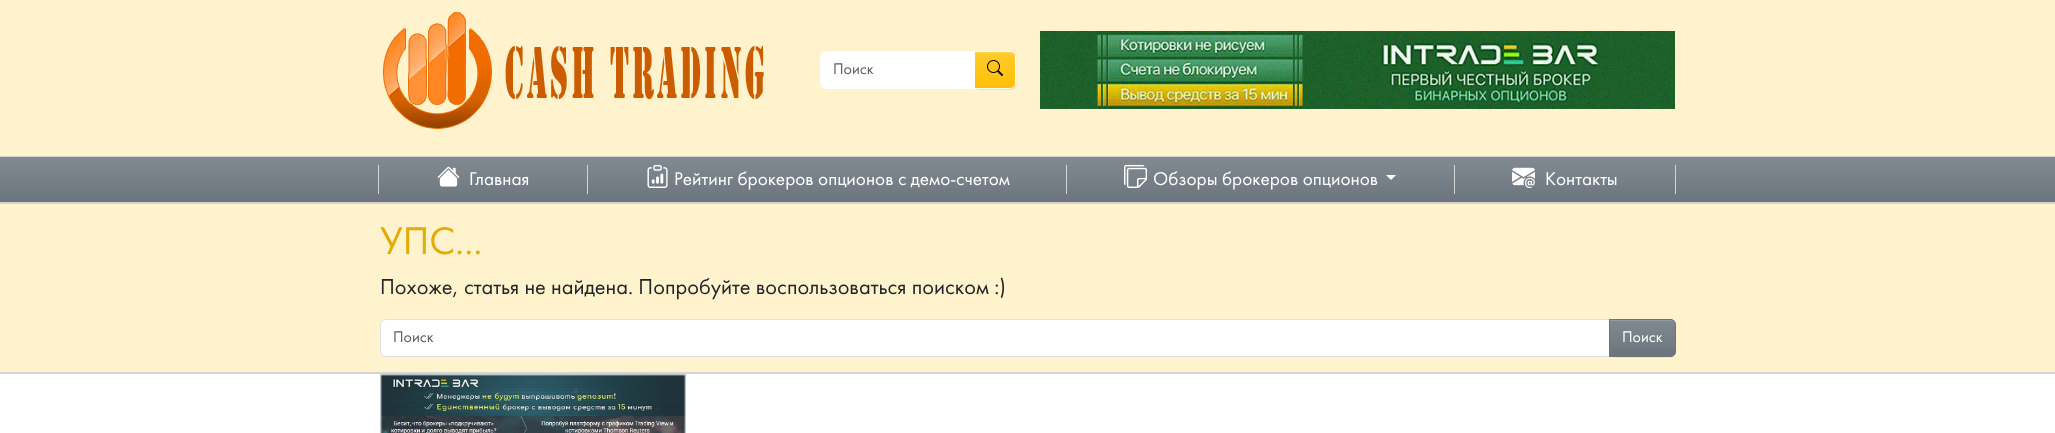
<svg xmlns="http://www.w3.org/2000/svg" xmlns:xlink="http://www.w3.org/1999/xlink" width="2055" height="433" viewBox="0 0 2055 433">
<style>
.cls-1{font:16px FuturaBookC;fill:#595c5f}
.cls-2{font:19.25px FuturaBookC;fill:#ffffff}
.cls-3{font:40px FuturaBookC;fill:#e3ab05}
.cls-4{font:22.4px FuturaBookC;fill:#212529}
.cls-5{font:16px FuturaBookC;fill:#ffffff}
</style>
<defs>
<clipPath id="clip1"><path d="M974 51H1010C1013.5 51 1016 53.5 1016 57V83C1016 86.5 1013.5 89 1010 89H974Z"/></clipPath>
<linearGradient id="g1" gradientUnits="userSpaceOnUse" x1="995" y1="52" x2="995" y2="88"><stop offset="0" stop-color="#ffffff" stop-opacity="0.15"/><stop offset="1" stop-color="#ffffff" stop-opacity="0"/></linearGradient>
<linearGradient id="g2" gradientUnits="userSpaceOnUse" x1="1028" y1="157" x2="1028" y2="202"><stop offset="0" stop-color="#828a91"/><stop offset="1" stop-color="#6c757d"/></linearGradient>
<clipPath id="clip2"><path d="M1609 319H1670C1673.5 319 1676 321.5 1676 325V351C1676 354.5 1673.5 357 1670 357H1609Z"/></clipPath>
<linearGradient id="g3" gradientUnits="userSpaceOnUse" x1="1643" y1="320" x2="1643" y2="356"><stop offset="0" stop-color="#ffffff" stop-opacity="0.15"/><stop offset="1" stop-color="#ffffff" stop-opacity="0"/></linearGradient>
</defs>
<rect width="100%" height="100%" fill="#fff3cd"/>
<image xlink:href="image0.png" x="383" y="12" width="381" height="117"/>
<path fill="#ffffff" stroke="#ffffff" d="M826 51.5H974.5V88.5H826C823 88.5 820.5 86 820.5 83V57C820.5 54 823 51.5 826 51.5Z"/>
<rect fill="#000000" fill-opacity="0.07" filter="blur(0.5px)" x="974" y="52" width="42" height="38" rx="6"/>
<path fill="#ffc107" d="M974 51H1010C1013.5 51 1016 53.5 1016 57V83C1016 86.5 1013.5 89 1010 89H974Z"/>
<g clip-path="url(#clip1)">
<rect fill="url(#g1)" x="975" y="52" width="41" height="31"/>
</g>
<path fill="#ffd24c" d="M975 53H1010C1013 53 1015 55 1015 58C1015 49 1004 52 998 52H975Z"/>
<path fill="none" stroke="#ffffff" d="M974.5 51.5H1010C1013 51.5 1015.5 54 1015.5 57V83C1015.5 86 1013 88.5 1010 88.5H974.5Z"/>
<image xlink:href="image1.png" x="987" y="60" width="16" height="16"/>
<image xlink:href="image2.png" x="1040" y="31" width="635" height="78"/>
<rect fill="url(#g2)" x="0" y="157" width="2055" height="45"/>
<rect fill="#d4d4d4" x="0" y="156" width="2055" height="1"/>
<rect fill="#d4d4d4" x="0" y="202" width="2055" height="2"/>
<rect fill="#d4d4d4" x="587" y="165" width="1" height="29"/>
<rect fill="#d4d4d4" x="378" y="165" width="1" height="29"/>
<image xlink:href="image3.png" x="437" y="166" width="23" height="21"/>
<rect fill="#d4d4d4" x="1066" y="165" width="1" height="29"/>
<image xlink:href="image4.png" x="647" y="164" width="21" height="24"/>
<image xlink:href="image5.png" x="1124" y="164" width="24" height="24"/>
<path fill="#ffffff" d="M1386 175H1396L1391 180Z"/>
<rect fill="#d4d4d4" x="1675" y="165" width="1" height="29"/>
<rect fill="#d4d4d4" x="1454" y="165" width="1" height="29"/>
<image xlink:href="image6.png" x="1512" y="167" width="24" height="21"/>
<path fill="#ffffff" stroke="#dee2e6" d="M386 319.5H1609.5V356.5H386C383 356.5 380.5 354 380.5 351V325C380.5 322 383 319.5 386 319.5Z"/>
<rect fill="#000000" fill-opacity="0.07" filter="blur(0.5px)" x="1609" y="320" width="67" height="38" rx="6"/>
<path fill="#6c757d" d="M1609 319H1670C1673.5 319 1676 321.5 1676 325V351C1676 354.5 1673.5 357 1670 357H1609Z"/>
<g clip-path="url(#clip2)">
<rect fill="url(#g3)" x="1610" y="320" width="66" height="31"/>
</g>
<path fill="#959ba1" d="M1610 321H1670C1673 321 1675 323 1675 326V325C1675 322 1673 320 1670 320H1610Z"/>
<path fill="none" stroke="#6c757d" d="M1609.5 319.5H1670C1673 319.5 1675.5 322 1675.5 325V351C1675.5 354 1673 356.5 1670 356.5H1609.5Z"/>
<rect fill="#ffffff" x="0" y="374" width="2055" height="59"/>
<rect fill="#d4d4d4" x="0" y="372" width="2055" height="2"/>
<image xlink:href="image7.png" x="380" y="374" width="306" height="59"/>
<text class="cls-1" x="833" y="74">Поиск</text>
<text class="cls-2" x="469" y="185">Главная</text>
<text class="cls-2" x="674" y="185">Рейтинг брокеров опционов с демо-счетом</text>
<text class="cls-2" x="1153" y="185">Обзоры брокеров опционов</text>
<text class="cls-2" x="1545" y="185">Контакты</text>
<text class="cls-3" x="380" y="254">УПС...</text>
<text class="cls-4" x="380" y="294">Похоже, статья не найдена. Попробуйте воспользоваться поиском :)</text>
<text class="cls-1" x="393" y="342">Поиск</text>
<text class="cls-5" x="1622" y="342">Поиск</text>
</svg>
